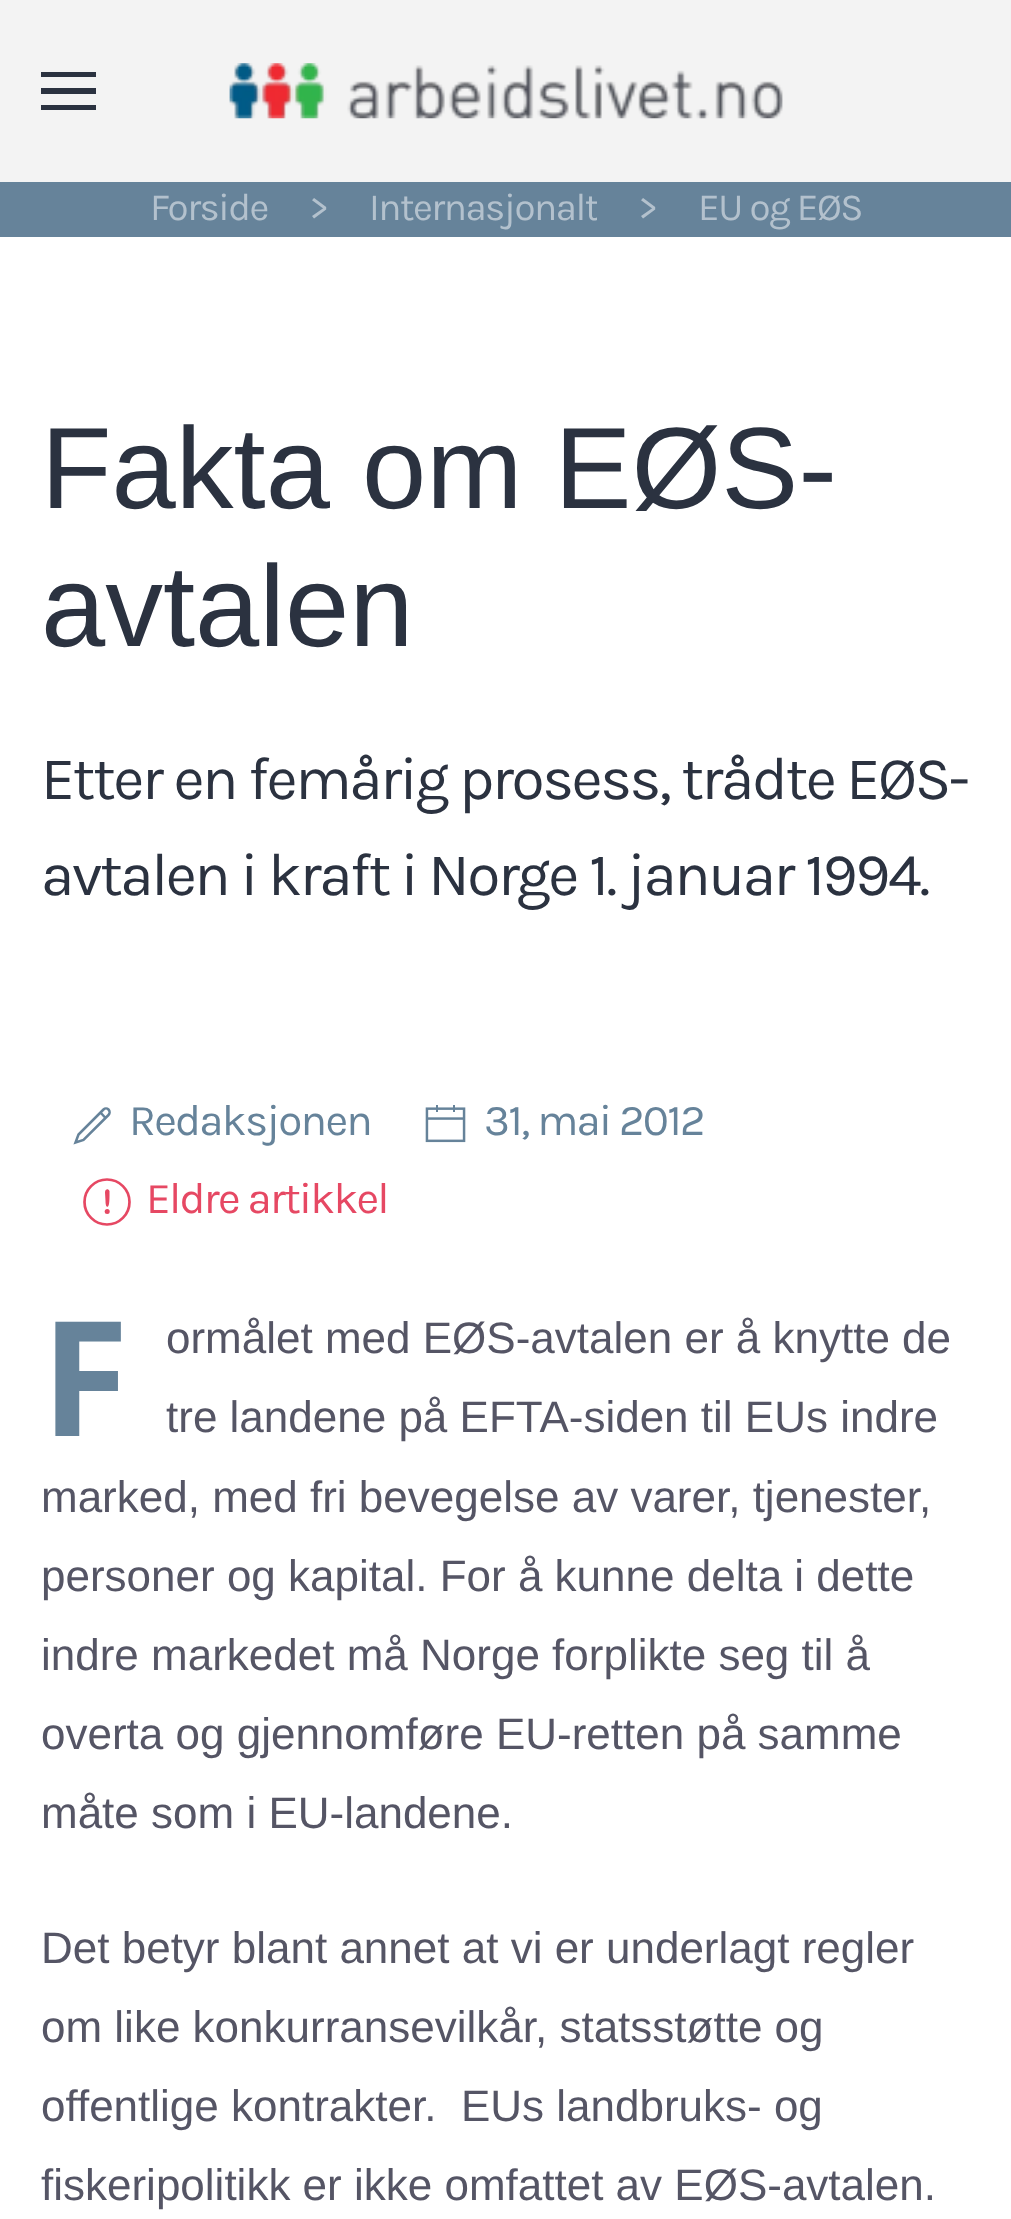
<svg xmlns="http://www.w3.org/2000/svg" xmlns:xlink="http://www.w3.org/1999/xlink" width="1011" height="2219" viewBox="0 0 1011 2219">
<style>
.cls-1{font:38.5px Karla;letter-spacing:-1.5px;fill:#b3c1cd}
.cls-2{font:115.5px Liberation Sans;fill:#2b3240}
.cls-3{font:60.5px Karla;letter-spacing:-2.4px;fill:#2b3240}
.cls-4{font:44px Karla;letter-spacing:-1.75px;fill:#66839a}
.cls-5{font:44px Karla;letter-spacing:-1.75px;fill:#e64863}
.cls-6{font:bold 160px Noto Sans;fill:#66839a}
.cls-7{font:44px Liberation Sans;fill:#555565}
</style>
<defs>
<clipPath id="clip1"><rect x="369" y="182" width="228" height="55"/></clipPath>
</defs>
<rect width="100%" height="100%" fill="#ffffff"/>
<rect fill="#66839a" x="0" y="182" width="1011" height="55"/>
<rect fill="#66839a" fill-opacity="0.5" filter="blur(1.5px)" x="3" y="3" width="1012" height="181"/>
<rect fill="#f3f3f3" x="0" y="0" width="1011" height="182"/>
<rect fill="#2b3240" x="41" y="72" width="55" height="5"/>
<rect fill="#2b3240" x="41" y="88" width="55" height="6"/>
<rect fill="#2b3240" x="41" y="105" width="55" height="5"/>
<image xlink:href="image0.png" x="229" y="63" width="554" height="56"/>
<path fill="none" stroke="#66839a" stroke-width="2.5" d="M108.5 1115L83.5 1140L75.5 1142.5L78.5 1134.5L103.5 1109.5C105 1108 107 1108 108.5 1109.5C110 1111 110 1113.5 108.5 1115ZM105.5 1118L100.5 1112.5"/>
<image xlink:href="image1.png" x="425" y="1105" width="41" height="38"/>
<circle fill="#e64863" cx="107.2" cy="1211.6" r="2.5"/>
<circle fill="none" stroke="#e64863" stroke-width="2.7" cx="107" cy="1202" r="22.5"/>
<path fill="#e64863" d="M109.5 1196C109.5 1197.5 109.5 1205.5 108 1206.5C105.5 1208 105.5 1201.5 105.5 1201L105 1192.5C105 1189.5 108 1188 109.5 1191Z"/>
<text class="cls-1" x="150" y="220">Forside</text>
<text class="cls-1" x="309" y="220">&gt;</text>
<g clip-path="url(#clip1)">
<text class="cls-1" x="369" y="220">Internasjonalt</text>
</g>
<text class="cls-1" x="638" y="220">&gt;</text>
<text class="cls-1" x="698" y="220">EU og EØS</text>
<text class="cls-2"><tspan x="41" y="508">Fakta om EØS-</tspan><tspan x="41" y="646">avtalen</tspan></text>
<text class="cls-3"><tspan x="41" y="799">Etter en femårig prosess, trådte EØS-</tspan><tspan x="41" y="895">avtalen i kraft i Norge 1. januar 1994.</tspan></text>
<text class="cls-4" x="129" y="1135">Redaksjonen</text>
<text class="cls-4" x="484" y="1135">31, mai 2012</text>
<text class="cls-5" x="146" y="1213">Eldre artikkel</text>
<text class="cls-6" x="41" y="1436">F</text>
<text class="cls-7"><tspan x="166" y="1353">ormålet med EØS-avtalen er å knytte de</tspan><tspan x="166" y="1432">tre landene på EFTA-siden til EUs indre</tspan></text>
<text class="cls-7"><tspan x="41" y="1512">marked, med fri bevegelse av varer, tjenester,</tspan><tspan x="41" y="1591">personer og kapital. For å kunne delta i dette</tspan><tspan x="41" y="1670">indre markedet må Norge forplikte seg til å</tspan><tspan x="41" y="1749">overta og gjennomføre EU-retten på samme</tspan><tspan x="41" y="1828">måte som i EU-landene.</tspan></text>
<text class="cls-7" xml:space="preserve"><tspan x="41" y="1963">Det betyr blant annet at vi er underlagt regler</tspan><tspan x="41" y="2042">om like konkurransevilkår, statsstøtte og</tspan><tspan x="41" y="2121">offentlige kontrakter.  EUs landbruks- og</tspan><tspan x="41" y="2200">fiskeripolitikk er ikke omfattet av EØS-avtalen.</tspan></text>
</svg>
